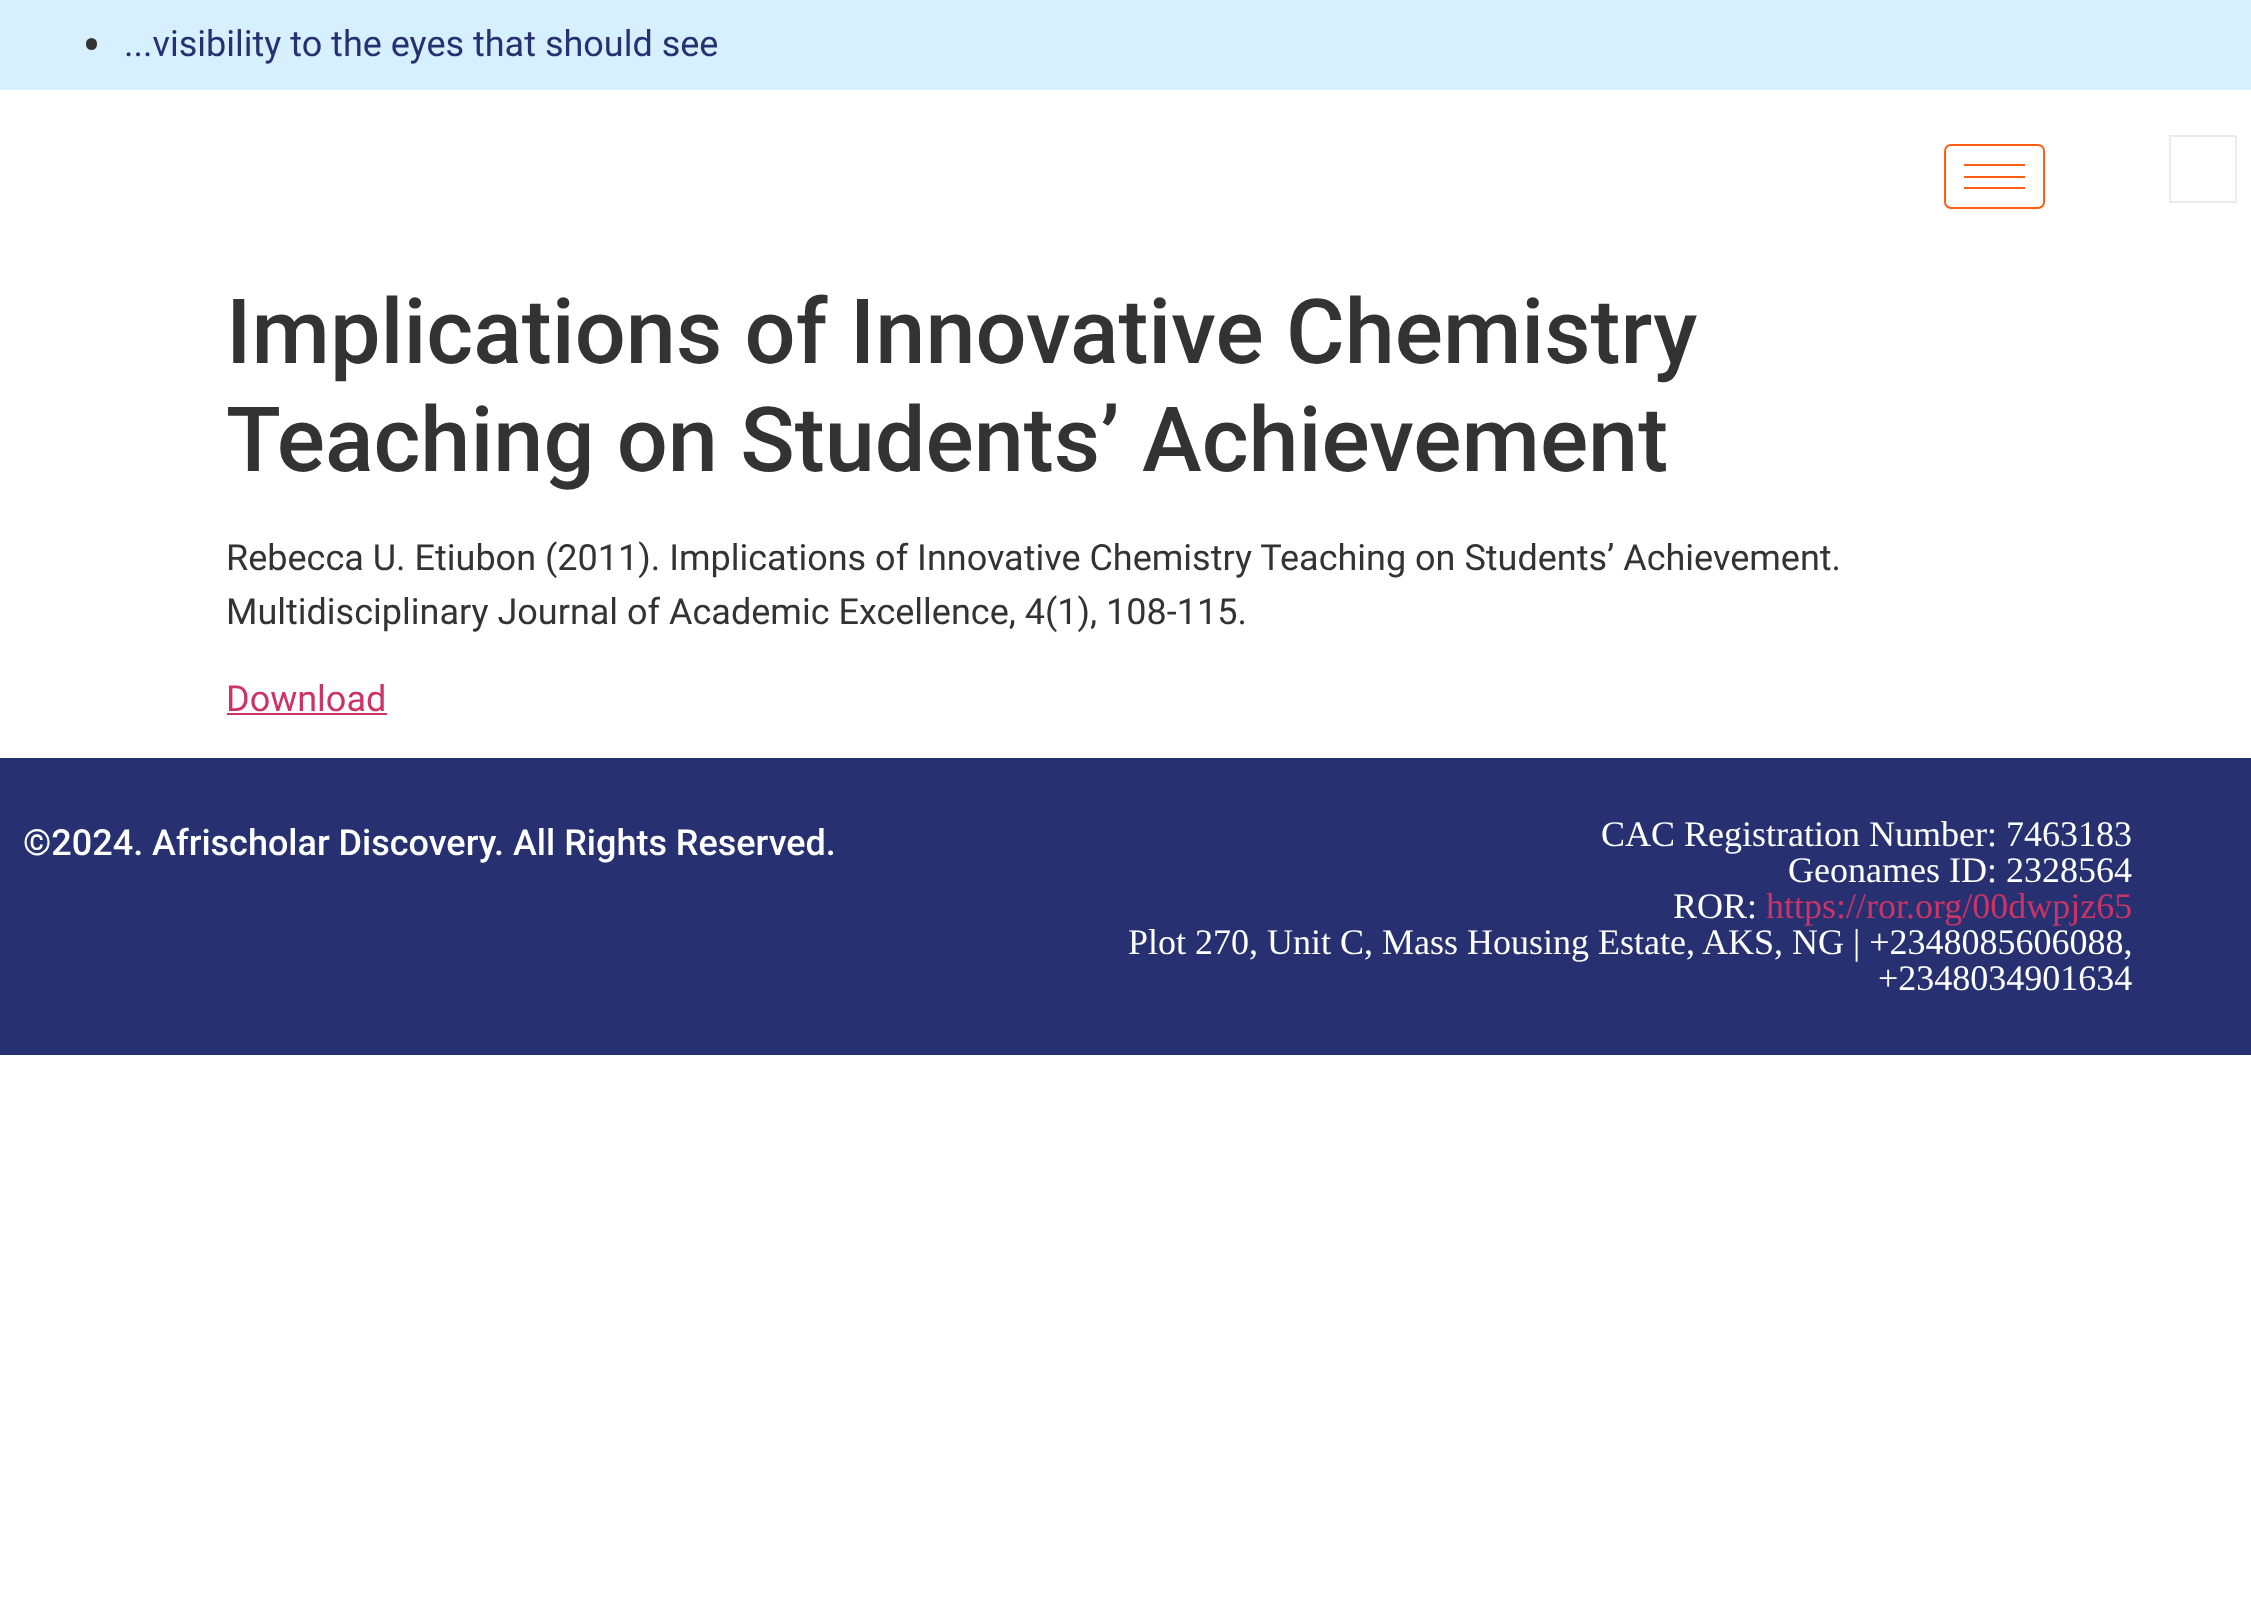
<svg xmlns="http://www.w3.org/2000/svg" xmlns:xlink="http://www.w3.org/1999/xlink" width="2251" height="1602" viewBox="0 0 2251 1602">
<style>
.cls-1{font:36px Roboto;fill:#273171}
.cls-2{font:500 90px Roboto;fill:#333333}
.cls-3{font:36px Roboto;fill:#333333}
.cls-4{font:36px Roboto;fill:#cc3366}
.cls-5{font:500 36px Roboto;fill:#ffffff}
.cls-6{font:36px Liberation Serif;fill:#ffffff}
.cls-7{font:36px Liberation Serif;fill:#cc3366}
</style>
<rect width="100%" height="100%" fill="#ffffff"/>
<rect fill="#d6f0ff" x="0" y="0" width="2251" height="90"/>
<rect fill="#333333" x="86" y="38" width="11" height="12" rx="5.5"/>
<rect fill="none" stroke="#ff5e13" stroke-width="2" x="1945" y="145" width="99" height="63" rx="6"/>
<rect fill="#ff5e13" x="1964" y="164" width="61" height="2"/>
<rect fill="#ff5e13" x="1964" y="176" width="61" height="2"/>
<rect fill="#ff5e13" x="1964" y="187" width="61" height="2"/>
<rect fill="none" stroke="#eaebf1" stroke-width="2" x="2170" y="136" width="66" height="66"/>
<rect fill="#cc3366" x="227" y="713" width="160" height="2"/>
<rect fill="#273171" x="0" y="758" width="2251" height="297"/>
<text class="cls-1" x="124" y="56">...visibility to the eyes that should see</text>
<text class="cls-2"><tspan x="226" y="363">Implications of Innovative Chemistry</tspan><tspan x="226" y="471">Teaching on Students’ Achievement</tspan></text>
<text class="cls-3"><tspan x="226" y="570">Rebecca U. Etiubon (2011). Implications of Innovative Chemistry Teaching on Students’ Achievement.</tspan><tspan x="226" y="624">Multidisciplinary Journal of Academic Excellence, 4(1), 108-115.</tspan></text>
<text class="cls-4" x="226" y="711">Download</text>
<text class="cls-5" x="23" y="855">©2024. Afrischolar Discovery. All Rights Reserved.</text>
<text class="cls-6" x="1601" y="846">CAC Registration Number: 7463183</text>
<text class="cls-6" x="1788" y="882">Geonames ID: 2328564</text>
<text class="cls-6" x="1673" y="918">ROR:</text>
<text class="cls-7" x="1766" y="918">https://ror.org/00dwpjz65</text>
<text class="cls-6" x="1128" y="954">Plot 270, Unit C, Mass Housing Estate, AKS, NG | +2348085606088,</text>
<text class="cls-6" x="1878" y="990">+2348034901634</text>
</svg>
